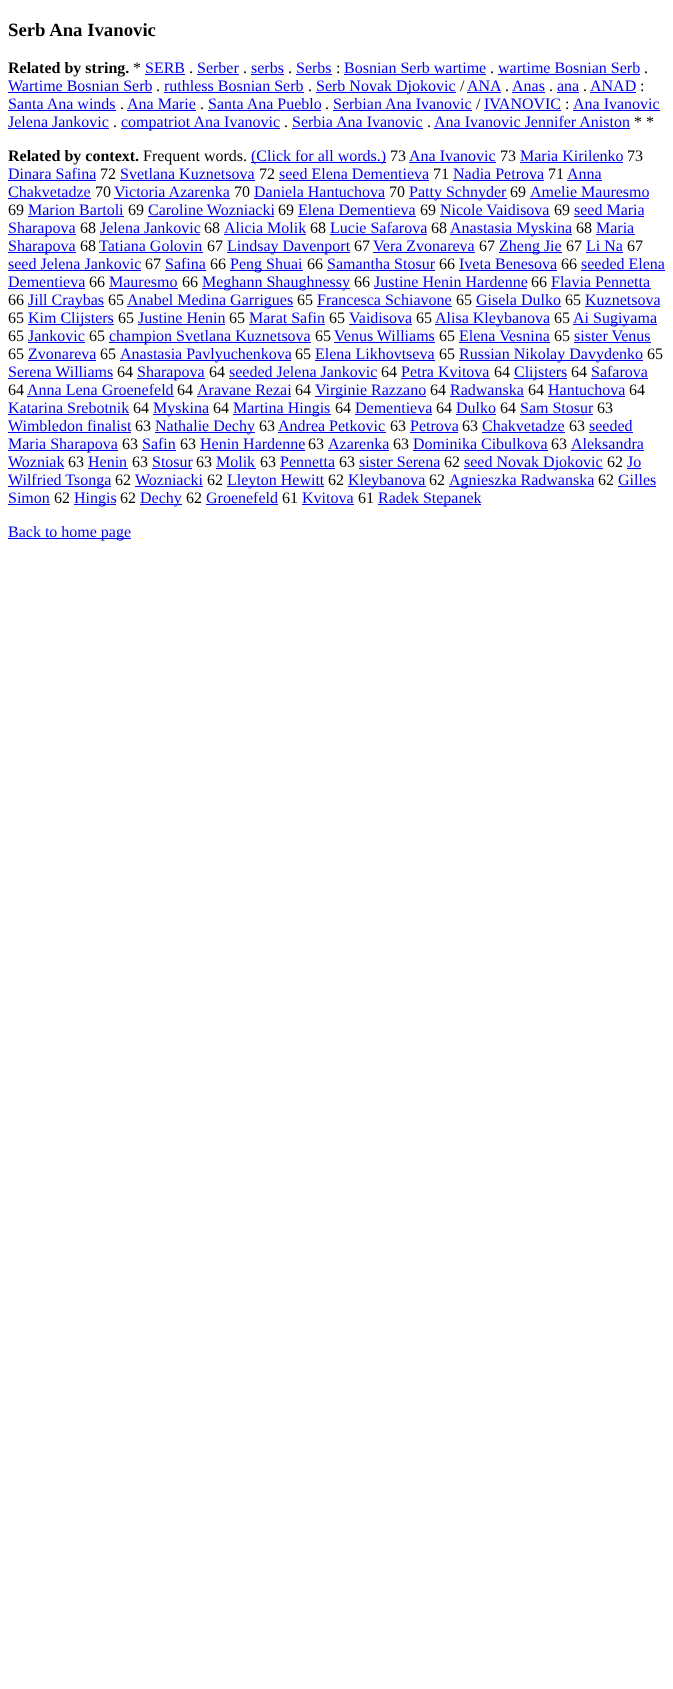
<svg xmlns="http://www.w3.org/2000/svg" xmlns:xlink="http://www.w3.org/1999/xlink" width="673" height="1689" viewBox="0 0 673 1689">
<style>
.cls-1{font:bold 18.75px Liberation Serif;fill:#000000}
.cls-2{font:bold 16px Liberation Serif;fill:#000000}
.cls-3{font:16px Liberation Serif;fill:#000000}
.cls-4{font:16px Liberation Serif;fill:#0000ee}
</style>
<rect width="100%" height="100%" fill="#ffffff"/>
<rect fill="#0000ee" x="145" y="74" width="40" height="1"/>
<rect fill="#0000ee" x="197" y="74" width="42" height="1"/>
<rect fill="#0000ee" x="251" y="74" width="33" height="1"/>
<rect fill="#0000ee" x="296" y="74" width="36" height="1"/>
<rect fill="#0000ee" x="344" y="74" width="142" height="1"/>
<rect fill="#0000ee" x="498" y="74" width="142" height="1"/>
<rect fill="#0000ee" x="8" y="92" width="144" height="1"/>
<rect fill="#0000ee" x="164" y="92" width="140" height="1"/>
<rect fill="#0000ee" x="316" y="92" width="140" height="1"/>
<rect fill="#0000ee" x="467" y="92" width="34" height="1"/>
<rect fill="#0000ee" x="512" y="92" width="33" height="1"/>
<rect fill="#0000ee" x="557" y="92" width="22" height="1"/>
<rect fill="#0000ee" x="590" y="92" width="46" height="1"/>
<rect fill="#0000ee" x="8" y="110" width="108" height="1"/>
<rect fill="#0000ee" x="127" y="110" width="69" height="1"/>
<rect fill="#0000ee" x="208" y="110" width="113" height="1"/>
<rect fill="#0000ee" x="333" y="110" width="139" height="1"/>
<rect fill="#0000ee" x="484" y="110" width="77" height="1"/>
<rect fill="#0000ee" x="573" y="110" width="87" height="1"/>
<rect fill="#0000ee" x="8" y="128" width="101" height="1"/>
<rect fill="#0000ee" x="121" y="128" width="159" height="1"/>
<rect fill="#0000ee" x="292" y="128" width="131" height="1"/>
<rect fill="#0000ee" x="434" y="128" width="196" height="1"/>
<rect fill="#0000ee" x="251" y="162" width="135" height="1"/>
<rect fill="#0000ee" x="409" y="162" width="87" height="1"/>
<rect fill="#0000ee" x="520" y="162" width="103" height="1"/>
<rect fill="#0000ee" x="8" y="180" width="88" height="1"/>
<rect fill="#0000ee" x="120" y="180" width="135" height="1"/>
<rect fill="#0000ee" x="279" y="180" width="150" height="1"/>
<rect fill="#0000ee" x="453" y="180" width="91" height="1"/>
<rect fill="#0000ee" x="567" y="180" width="35" height="1"/>
<rect fill="#0000ee" x="8" y="198" width="83" height="1"/>
<rect fill="#0000ee" x="114" y="198" width="116" height="1"/>
<rect fill="#0000ee" x="254" y="198" width="131" height="1"/>
<rect fill="#0000ee" x="409" y="198" width="98" height="1"/>
<rect fill="#0000ee" x="530" y="198" width="119" height="1"/>
<rect fill="#0000ee" x="28" y="216" width="96" height="1"/>
<rect fill="#0000ee" x="148" y="216" width="126" height="1"/>
<rect fill="#0000ee" x="298" y="216" width="118" height="1"/>
<rect fill="#0000ee" x="440" y="216" width="110" height="1"/>
<rect fill="#0000ee" x="574" y="216" width="70" height="1"/>
<rect fill="#0000ee" x="8" y="234" width="68" height="1"/>
<rect fill="#0000ee" x="100" y="234" width="100" height="1"/>
<rect fill="#0000ee" x="224" y="234" width="82" height="1"/>
<rect fill="#0000ee" x="330" y="234" width="97" height="1"/>
<rect fill="#0000ee" x="450" y="234" width="122" height="1"/>
<rect fill="#0000ee" x="596" y="234" width="39" height="1"/>
<rect fill="#0000ee" x="8" y="252" width="68" height="1"/>
<rect fill="#0000ee" x="99" y="252" width="104" height="1"/>
<rect fill="#0000ee" x="227" y="252" width="123" height="1"/>
<rect fill="#0000ee" x="373" y="252" width="102" height="1"/>
<rect fill="#0000ee" x="499" y="252" width="63" height="1"/>
<rect fill="#0000ee" x="586" y="252" width="37" height="1"/>
<rect fill="#0000ee" x="8" y="270" width="133" height="1"/>
<rect fill="#0000ee" x="165" y="270" width="41" height="1"/>
<rect fill="#0000ee" x="230" y="270" width="73" height="1"/>
<rect fill="#0000ee" x="327" y="270" width="108" height="1"/>
<rect fill="#0000ee" x="459" y="270" width="98" height="1"/>
<rect fill="#0000ee" x="581" y="270" width="84" height="1"/>
<rect fill="#0000ee" x="8" y="288" width="77" height="1"/>
<rect fill="#0000ee" x="109" y="288" width="69" height="1"/>
<rect fill="#0000ee" x="202" y="288" width="148" height="1"/>
<rect fill="#0000ee" x="374" y="288" width="153" height="1"/>
<rect fill="#0000ee" x="551" y="288" width="100" height="1"/>
<rect fill="#0000ee" x="28" y="306" width="76" height="1"/>
<rect fill="#0000ee" x="127" y="306" width="166" height="1"/>
<rect fill="#0000ee" x="317" y="306" width="135" height="1"/>
<rect fill="#0000ee" x="476" y="306" width="85" height="1"/>
<rect fill="#0000ee" x="585" y="306" width="75" height="1"/>
<rect fill="#0000ee" x="28" y="324" width="86" height="1"/>
<rect fill="#0000ee" x="138" y="324" width="87" height="1"/>
<rect fill="#0000ee" x="249" y="324" width="76" height="1"/>
<rect fill="#0000ee" x="349" y="324" width="63" height="1"/>
<rect fill="#0000ee" x="435" y="324" width="115" height="1"/>
<rect fill="#0000ee" x="573" y="324" width="84" height="1"/>
<rect fill="#0000ee" x="28" y="342" width="57" height="1"/>
<rect fill="#0000ee" x="109" y="342" width="202" height="1"/>
<rect fill="#0000ee" x="334" y="342" width="101" height="1"/>
<rect fill="#0000ee" x="459" y="342" width="91" height="1"/>
<rect fill="#0000ee" x="574" y="342" width="77" height="1"/>
<rect fill="#0000ee" x="28" y="360" width="68" height="1"/>
<rect fill="#0000ee" x="120" y="360" width="171" height="1"/>
<rect fill="#0000ee" x="315" y="360" width="120" height="1"/>
<rect fill="#0000ee" x="459" y="360" width="184" height="1"/>
<rect fill="#0000ee" x="8" y="378" width="105" height="1"/>
<rect fill="#0000ee" x="137" y="378" width="68" height="1"/>
<rect fill="#0000ee" x="229" y="378" width="148" height="1"/>
<rect fill="#0000ee" x="401" y="378" width="89" height="1"/>
<rect fill="#0000ee" x="514" y="378" width="53" height="1"/>
<rect fill="#0000ee" x="591" y="378" width="57" height="1"/>
<rect fill="#0000ee" x="27" y="396" width="147" height="1"/>
<rect fill="#0000ee" x="197" y="396" width="94" height="1"/>
<rect fill="#0000ee" x="315" y="396" width="111" height="1"/>
<rect fill="#0000ee" x="450" y="396" width="74" height="1"/>
<rect fill="#0000ee" x="548" y="396" width="77" height="1"/>
<rect fill="#0000ee" x="8" y="414" width="121" height="1"/>
<rect fill="#0000ee" x="153" y="414" width="56" height="1"/>
<rect fill="#0000ee" x="233" y="414" width="98" height="1"/>
<rect fill="#0000ee" x="355" y="414" width="77" height="1"/>
<rect fill="#0000ee" x="456" y="414" width="40" height="1"/>
<rect fill="#0000ee" x="520" y="414" width="73" height="1"/>
<rect fill="#0000ee" x="8" y="432" width="123" height="1"/>
<rect fill="#0000ee" x="155" y="432" width="100" height="1"/>
<rect fill="#0000ee" x="278" y="432" width="108" height="1"/>
<rect fill="#0000ee" x="410" y="432" width="48" height="1"/>
<rect fill="#0000ee" x="482" y="432" width="83" height="1"/>
<rect fill="#0000ee" x="589" y="432" width="44" height="1"/>
<rect fill="#0000ee" x="8" y="450" width="110" height="1"/>
<rect fill="#0000ee" x="142" y="450" width="34" height="1"/>
<rect fill="#0000ee" x="200" y="450" width="105" height="1"/>
<rect fill="#0000ee" x="328" y="450" width="61" height="1"/>
<rect fill="#0000ee" x="413" y="450" width="135" height="1"/>
<rect fill="#0000ee" x="571" y="450" width="73" height="1"/>
<rect fill="#0000ee" x="8" y="468" width="56" height="1"/>
<rect fill="#0000ee" x="88" y="468" width="40" height="1"/>
<rect fill="#0000ee" x="152" y="468" width="40" height="1"/>
<rect fill="#0000ee" x="216" y="468" width="40" height="1"/>
<rect fill="#0000ee" x="280" y="468" width="55" height="1"/>
<rect fill="#0000ee" x="359" y="468" width="81" height="1"/>
<rect fill="#0000ee" x="464" y="468" width="139" height="1"/>
<rect fill="#0000ee" x="627" y="468" width="14" height="1"/>
<rect fill="#0000ee" x="8" y="486" width="103" height="1"/>
<rect fill="#0000ee" x="135" y="486" width="68" height="1"/>
<rect fill="#0000ee" x="227" y="486" width="97" height="1"/>
<rect fill="#0000ee" x="348" y="486" width="78" height="1"/>
<rect fill="#0000ee" x="449" y="486" width="145" height="1"/>
<rect fill="#0000ee" x="618" y="486" width="38" height="1"/>
<rect fill="#0000ee" x="8" y="504" width="42" height="1"/>
<rect fill="#0000ee" x="74" y="504" width="42" height="1"/>
<rect fill="#0000ee" x="140" y="504" width="42" height="1"/>
<rect fill="#0000ee" x="206" y="504" width="72" height="1"/>
<rect fill="#0000ee" x="302" y="504" width="52" height="1"/>
<rect fill="#0000ee" x="378" y="504" width="103" height="1"/>
<rect fill="#0000ee" x="8" y="538" width="123" height="1"/>
<text class="cls-1" x="8" y="36">Serb Ana Ivanovic</text>
<text class="cls-2" x="8" y="73">Related by string.</text>
<text class="cls-3" x="133" y="73">*</text>
<text class="cls-4" x="145" y="73">SERB</text>
<text class="cls-3" x="189" y="73">.</text>
<text class="cls-4" x="197" y="73">Serber</text>
<text class="cls-3" x="243" y="73">.</text>
<text class="cls-4" x="251" y="73">serbs</text>
<text class="cls-3" x="288" y="73">.</text>
<text class="cls-4" x="296" y="73">Serbs</text>
<text class="cls-3" x="336" y="73">:</text>
<text class="cls-4" x="344" y="73">Bosnian Serb wartime</text>
<text class="cls-3" x="490" y="73">.</text>
<text class="cls-4" x="498" y="73">wartime Bosnian Serb</text>
<text class="cls-3" x="644" y="73">.</text>
<text class="cls-4" x="8" y="91">Wartime Bosnian Serb</text>
<text class="cls-3" x="156" y="91">.</text>
<text class="cls-4" x="164" y="91">ruthless Bosnian Serb</text>
<text class="cls-3" x="308" y="91">.</text>
<text class="cls-4" x="316" y="91">Serb Novak Djokovic</text>
<text class="cls-3" x="460" y="91">/</text>
<text class="cls-4" x="467" y="91">ANA</text>
<text class="cls-3" x="505" y="91">.</text>
<text class="cls-4" x="512" y="91">Anas</text>
<text class="cls-3" x="549" y="91">.</text>
<text class="cls-4" x="557" y="91">ana</text>
<text class="cls-3" x="583" y="91">.</text>
<text class="cls-4" x="590" y="91">ANAD</text>
<text class="cls-3" x="640" y="91">:</text>
<text class="cls-4" x="8" y="109">Santa Ana winds</text>
<text class="cls-3" x="120" y="109">.</text>
<text class="cls-4" x="127" y="109">Ana Marie</text>
<text class="cls-3" x="200" y="109">.</text>
<text class="cls-4" x="208" y="109">Santa Ana Pueblo</text>
<text class="cls-3" x="325" y="109">.</text>
<text class="cls-4" x="333" y="109">Serbian Ana Ivanovic</text>
<text class="cls-3" x="476" y="109">/</text>
<text class="cls-4" x="484" y="109">IVANOVIC</text>
<text class="cls-3" x="565" y="109">:</text>
<text class="cls-4" x="573" y="109">Ana Ivanovic</text>
<text class="cls-4" x="8" y="127">Jelena Jankovic</text>
<text class="cls-4" x="121" y="127">compatriot Ana Ivanovic</text>
<text class="cls-4" x="292" y="127">Serbia Ana Ivanovic</text>
<text class="cls-4" x="434" y="127">Ana Ivanovic Jennifer Aniston</text>
<text class="cls-3" x="634" y="127">* *</text>
<text class="cls-3" x="113" y="127">.</text>
<text class="cls-3" x="284" y="127">.</text>
<text class="cls-3" x="427" y="127">.</text>
<text class="cls-2" x="8" y="161">Related by context.</text>
<text class="cls-3" x="143" y="161">Frequent words.</text>
<text class="cls-4" x="251" y="161">(Click for all words.)</text>
<text class="cls-3" x="390" y="161">73</text>
<text class="cls-4" x="409" y="161">Ana Ivanovic</text>
<text class="cls-3" x="500" y="161">73</text>
<text class="cls-4" x="520" y="161">Maria Kirilenko</text>
<text class="cls-3" x="627" y="161">73</text>
<text class="cls-4" x="8" y="179">Dinara Safina</text>
<text class="cls-3" x="100" y="179">72</text>
<text class="cls-4" x="120" y="179">Svetlana Kuznetsova</text>
<text class="cls-3" x="259" y="179">72</text>
<text class="cls-4" x="279" y="179">seed Elena Dementieva</text>
<text class="cls-3" x="433" y="179">71</text>
<text class="cls-4" x="453" y="179">Nadia Petrova</text>
<text class="cls-3" x="548" y="179">71</text>
<text class="cls-4" x="567" y="179">Anna</text>
<text class="cls-4" x="8" y="197">Chakvetadze</text>
<text class="cls-3" x="95" y="197">70</text>
<text class="cls-4" x="114" y="197">Victoria Azarenka</text>
<text class="cls-3" x="234" y="197">70</text>
<text class="cls-4" x="254" y="197">Daniela Hantuchova</text>
<text class="cls-3" x="389" y="197">70</text>
<text class="cls-4" x="409" y="197">Patty Schnyder</text>
<text class="cls-3" x="510" y="197">69</text>
<text class="cls-4" x="530" y="197">Amelie Mauresmo</text>
<text class="cls-3" x="8" y="215">69</text>
<text class="cls-4" x="28" y="215">Marion Bartoli</text>
<text class="cls-3" x="128" y="215">69</text>
<text class="cls-4" x="148" y="215">Caroline Wozniacki</text>
<text class="cls-3" x="278" y="215">69</text>
<text class="cls-4" x="298" y="215">Elena Dementieva</text>
<text class="cls-3" x="420" y="215">69</text>
<text class="cls-4" x="440" y="215">Nicole Vaidisova</text>
<text class="cls-3" x="554" y="215">69</text>
<text class="cls-4" x="574" y="215">seed Maria</text>
<text class="cls-4" x="8" y="233">Sharapova</text>
<text class="cls-3" x="80" y="233">68</text>
<text class="cls-4" x="100" y="233">Jelena Jankovic</text>
<text class="cls-3" x="204" y="233">68</text>
<text class="cls-4" x="224" y="233">Alicia Molik</text>
<text class="cls-3" x="310" y="233">68</text>
<text class="cls-4" x="330" y="233">Lucie Safarova</text>
<text class="cls-3" x="431" y="233">68</text>
<text class="cls-4" x="450" y="233">Anastasia Myskina</text>
<text class="cls-3" x="576" y="233">68</text>
<text class="cls-4" x="596" y="233">Maria</text>
<text class="cls-4" x="8" y="251">Sharapova</text>
<text class="cls-3" x="80" y="251">68</text>
<text class="cls-4" x="99" y="251">Tatiana Golovin</text>
<text class="cls-3" x="207" y="251">67</text>
<text class="cls-4" x="227" y="251">Lindsay Davenport</text>
<text class="cls-3" x="354" y="251">67</text>
<text class="cls-4" x="373" y="251">Vera Zvonareva</text>
<text class="cls-3" x="479" y="251">67</text>
<text class="cls-4" x="499" y="251">Zheng Jie</text>
<text class="cls-3" x="566" y="251">67</text>
<text class="cls-4" x="586" y="251">Li Na</text>
<text class="cls-3" x="627" y="251">67</text>
<text class="cls-4" x="8" y="269">seed Jelena Jankovic</text>
<text class="cls-3" x="145" y="269">67</text>
<text class="cls-4" x="165" y="269">Safina</text>
<text class="cls-3" x="210" y="269">66</text>
<text class="cls-4" x="230" y="269">Peng Shuai</text>
<text class="cls-3" x="307" y="269">66</text>
<text class="cls-4" x="327" y="269">Samantha Stosur</text>
<text class="cls-3" x="439" y="269">66</text>
<text class="cls-4" x="459" y="269">Iveta Benesova</text>
<text class="cls-3" x="561" y="269">66</text>
<text class="cls-4" x="581" y="269">seeded Elena</text>
<text class="cls-4" x="8" y="287">Dementieva</text>
<text class="cls-3" x="89" y="287">66</text>
<text class="cls-4" x="109" y="287">Mauresmo</text>
<text class="cls-3" x="182" y="287">66</text>
<text class="cls-4" x="202" y="287">Meghann Shaughnessy</text>
<text class="cls-3" x="354" y="287">66</text>
<text class="cls-4" x="374" y="287">Justine Henin Hardenne</text>
<text class="cls-3" x="531" y="287">66</text>
<text class="cls-4" x="551" y="287">Flavia Pennetta</text>
<text class="cls-3" x="8" y="305">66</text>
<text class="cls-4" x="28" y="305">Jill Craybas</text>
<text class="cls-3" x="108" y="305">65</text>
<text class="cls-4" x="127" y="305">Anabel Medina Garrigues</text>
<text class="cls-3" x="297" y="305">65</text>
<text class="cls-4" x="317" y="305">Francesca Schiavone</text>
<text class="cls-3" x="456" y="305">65</text>
<text class="cls-4" x="476" y="305">Gisela Dulko</text>
<text class="cls-3" x="565" y="305">65</text>
<text class="cls-4" x="585" y="305">Kuznetsova</text>
<text class="cls-3" x="8" y="323">65</text>
<text class="cls-4" x="28" y="323">Kim Clijsters</text>
<text class="cls-3" x="118" y="323">65</text>
<text class="cls-4" x="138" y="323">Justine Henin</text>
<text class="cls-3" x="229" y="323">65</text>
<text class="cls-4" x="249" y="323">Marat Safin</text>
<text class="cls-3" x="329" y="323">65</text>
<text class="cls-4" x="349" y="323">Vaidisova</text>
<text class="cls-3" x="416" y="323">65</text>
<text class="cls-4" x="435" y="323">Alisa Kleybanova</text>
<text class="cls-3" x="554" y="323">65</text>
<text class="cls-4" x="573" y="323">Ai Sugiyama</text>
<text class="cls-3" x="8" y="341">65</text>
<text class="cls-4" x="28" y="341">Jankovic</text>
<text class="cls-3" x="89" y="341">65</text>
<text class="cls-4" x="109" y="341">champion Svetlana Kuznetsova</text>
<text class="cls-3" x="315" y="341">65</text>
<text class="cls-4" x="334" y="341">Venus Williams</text>
<text class="cls-3" x="439" y="341">65</text>
<text class="cls-4" x="459" y="341">Elena Vesnina</text>
<text class="cls-3" x="554" y="341">65</text>
<text class="cls-4" x="574" y="341">sister Venus</text>
<text class="cls-3" x="8" y="359">65</text>
<text class="cls-4" x="28" y="359">Zvonareva</text>
<text class="cls-3" x="100" y="359">65</text>
<text class="cls-4" x="120" y="359">Anastasia Pavlyuchenkova</text>
<text class="cls-3" x="295" y="359">65</text>
<text class="cls-4" x="315" y="359">Elena Likhovtseva</text>
<text class="cls-3" x="439" y="359">65</text>
<text class="cls-4" x="459" y="359">Russian Nikolay Davydenko</text>
<text class="cls-3" x="647" y="359">65</text>
<text class="cls-4" x="8" y="377">Serena Williams</text>
<text class="cls-3" x="117" y="377">64</text>
<text class="cls-4" x="137" y="377">Sharapova</text>
<text class="cls-3" x="209" y="377">64</text>
<text class="cls-4" x="229" y="377">seeded Jelena Jankovic</text>
<text class="cls-3" x="381" y="377">64</text>
<text class="cls-4" x="401" y="377">Petra Kvitova</text>
<text class="cls-3" x="494" y="377">64</text>
<text class="cls-4" x="514" y="377">Clijsters</text>
<text class="cls-3" x="571" y="377">64</text>
<text class="cls-4" x="591" y="377">Safarova</text>
<text class="cls-3" x="8" y="395">64</text>
<text class="cls-4" x="27" y="395">Anna Lena Groenefeld</text>
<text class="cls-3" x="177" y="395">64</text>
<text class="cls-4" x="197" y="395">Aravane Rezai</text>
<text class="cls-3" x="295" y="395">64</text>
<text class="cls-4" x="315" y="395">Virginie Razzano</text>
<text class="cls-3" x="430" y="395">64</text>
<text class="cls-4" x="450" y="395">Radwanska</text>
<text class="cls-3" x="528" y="395">64</text>
<text class="cls-4" x="548" y="395">Hantuchova</text>
<text class="cls-3" x="629" y="395">64</text>
<text class="cls-4" x="8" y="413">Katarina Srebotnik</text>
<text class="cls-3" x="133" y="413">64</text>
<text class="cls-4" x="153" y="413">Myskina</text>
<text class="cls-3" x="213" y="413">64</text>
<text class="cls-4" x="233" y="413">Martina Hingis</text>
<text class="cls-3" x="335" y="413">64</text>
<text class="cls-4" x="355" y="413">Dementieva</text>
<text class="cls-3" x="436" y="413">64</text>
<text class="cls-4" x="456" y="413">Dulko</text>
<text class="cls-3" x="500" y="413">64</text>
<text class="cls-4" x="520" y="413">Sam Stosur</text>
<text class="cls-3" x="597" y="413">63</text>
<text class="cls-4" x="8" y="431">Wimbledon finalist</text>
<text class="cls-3" x="135" y="431">63</text>
<text class="cls-4" x="155" y="431">Nathalie Dechy</text>
<text class="cls-3" x="259" y="431">63</text>
<text class="cls-4" x="278" y="431">Andrea Petkovic</text>
<text class="cls-3" x="390" y="431">63</text>
<text class="cls-4" x="410" y="431">Petrova</text>
<text class="cls-3" x="462" y="431">63</text>
<text class="cls-4" x="482" y="431">Chakvetadze</text>
<text class="cls-3" x="569" y="431">63</text>
<text class="cls-4" x="589" y="431">seeded</text>
<text class="cls-4" x="8" y="449">Maria Sharapova</text>
<text class="cls-3" x="122" y="449">63</text>
<text class="cls-4" x="142" y="449">Safin</text>
<text class="cls-3" x="180" y="449">63</text>
<text class="cls-4" x="200" y="449">Henin Hardenne</text>
<text class="cls-3" x="308" y="449">63</text>
<text class="cls-4" x="328" y="449">Azarenka</text>
<text class="cls-3" x="393" y="449">63</text>
<text class="cls-4" x="413" y="449">Dominika Cibulkova</text>
<text class="cls-3" x="551" y="449">63</text>
<text class="cls-4" x="571" y="449">Aleksandra</text>
<text class="cls-4" x="8" y="467">Wozniak</text>
<text class="cls-3" x="68" y="467">63</text>
<text class="cls-4" x="88" y="467">Henin</text>
<text class="cls-3" x="132" y="467">63</text>
<text class="cls-4" x="152" y="467">Stosur</text>
<text class="cls-3" x="196" y="467">63</text>
<text class="cls-4" x="216" y="467">Molik</text>
<text class="cls-3" x="260" y="467">63</text>
<text class="cls-4" x="280" y="467">Pennetta</text>
<text class="cls-3" x="339" y="467">63</text>
<text class="cls-4" x="359" y="467">sister Serena</text>
<text class="cls-3" x="444" y="467">62</text>
<text class="cls-4" x="464" y="467">seed Novak Djokovic</text>
<text class="cls-3" x="607" y="467">62</text>
<text class="cls-4" x="627" y="467">Jo</text>
<text class="cls-4" x="8" y="485">Wilfried Tsonga</text>
<text class="cls-3" x="115" y="485">62</text>
<text class="cls-4" x="135" y="485">Wozniacki</text>
<text class="cls-3" x="207" y="485">62</text>
<text class="cls-4" x="227" y="485">Lleyton Hewitt</text>
<text class="cls-3" x="328" y="485">62</text>
<text class="cls-4" x="348" y="485">Kleybanova</text>
<text class="cls-3" x="429" y="485">62</text>
<text class="cls-4" x="449" y="485">Agnieszka Radwanska</text>
<text class="cls-3" x="598" y="485">62</text>
<text class="cls-4" x="618" y="485">Gilles</text>
<text class="cls-4" x="8" y="503">Simon</text>
<text class="cls-3" x="54" y="503">62</text>
<text class="cls-4" x="74" y="503">Hingis</text>
<text class="cls-3" x="120" y="503">62</text>
<text class="cls-4" x="140" y="503">Dechy</text>
<text class="cls-3" x="186" y="503">62</text>
<text class="cls-4" x="206" y="503">Groenefeld</text>
<text class="cls-3" x="282" y="503">61</text>
<text class="cls-4" x="302" y="503">Kvitova</text>
<text class="cls-3" x="358" y="503">61</text>
<text class="cls-4" x="378" y="503">Radek Stepanek</text>
<text class="cls-4" x="8" y="537">Back to home page</text>
</svg>
